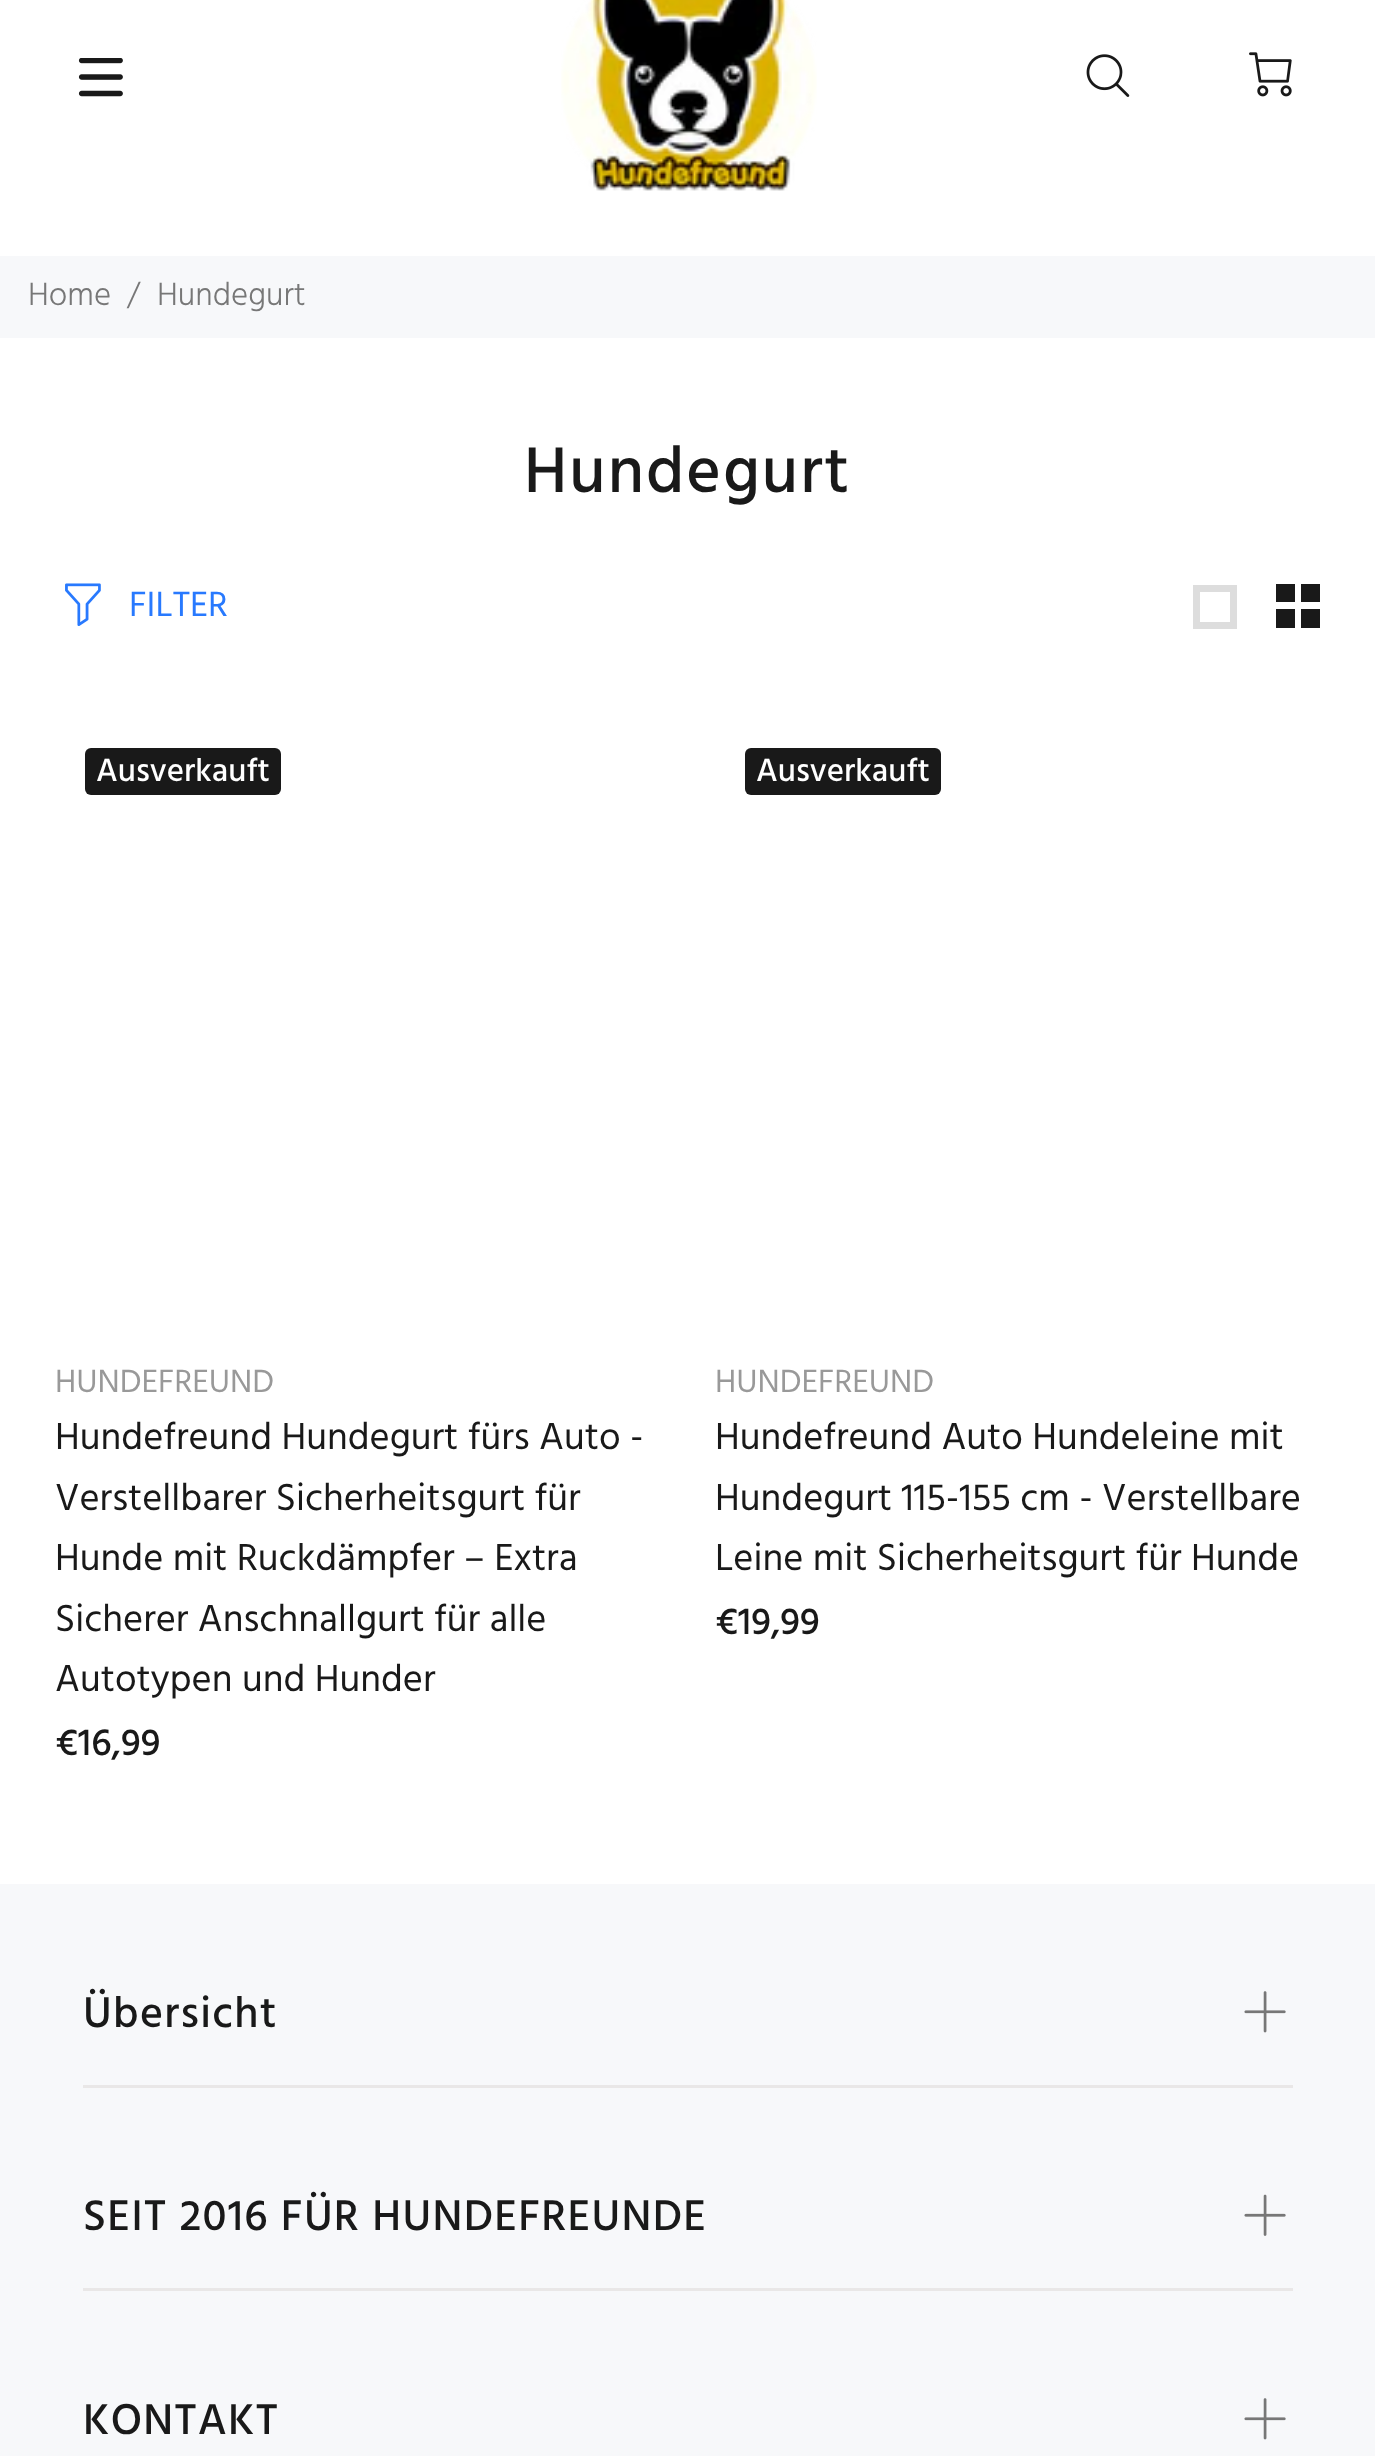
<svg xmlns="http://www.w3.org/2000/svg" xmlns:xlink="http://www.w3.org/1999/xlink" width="1375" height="2456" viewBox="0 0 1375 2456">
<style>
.cls-1{font:300 33px Hind;fill:#777777}
.cls-2{font:500 66px Hind;letter-spacing:2px;fill:#191919}
.cls-3{font:36px Hind;fill:#2879fe}
.cls-4{font:500 33px Hind;fill:#ffffff}
.cls-5{font:33px Hind;fill:#999999}
.cls-6{font:38.5px Hind;fill:#191919}
.cls-7{font:500 38.5px Hind;fill:#191919}
.cls-8{font:500 44px Hind;letter-spacing:1.3px;fill:#191919}
</style>
<rect width="100%" height="100%" fill="#ffffff"/>
<image xlink:href="image0.png" x="78" y="58" width="45" height="39"/>
<image xlink:href="image1.png" x="561" y="0" width="256" height="191"/>
<image xlink:href="image2.png" x="1086" y="54" width="44" height="43"/>
<image xlink:href="image3.png" x="1249" y="52" width="43" height="45"/>
<rect fill="#f7f8fa" x="0" y="256" width="1375" height="82"/>
<image xlink:href="image4.png" x="65" y="583" width="36" height="43"/>
<path fill="#dddddd" d="M1193 629V585H1237V629ZM1200 622H1230V592H1200Z"/>
<path fill="#191919" d="M1276 584H1295V602H1276ZM1301 584H1320V602H1301ZM1276 609H1295V628H1276ZM1301 609H1320V628H1301Z"/>
<rect fill="#191919" x="85" y="748" width="196" height="47" rx="6"/>
<rect fill="#191919" x="745" y="748" width="196" height="47" rx="6"/>
<rect fill="#f7f8fa" x="0" y="1884" width="1375" height="572"/>
<rect fill="#e9e7e7" x="83" y="2085" width="1210" height="3"/>
<image xlink:href="image5.png" x="1244" y="1991" width="42" height="42"/>
<rect fill="#e9e7e7" x="83" y="2288" width="1210" height="3"/>
<image xlink:href="image6.png" x="1244" y="2194" width="42" height="42"/>
<image xlink:href="image5.png" x="1244" y="2398" width="42" height="42"/>
<text class="cls-1" x="28" y="305">Home</text>
<text class="cls-1" x="127" y="305">/</text>
<text class="cls-1" x="157" y="305">Hundegurt</text>
<text class="cls-2" x="524" y="492">Hundegurt</text>
<text class="cls-3" x="129" y="616">FILTER</text>
<text class="cls-4" x="96" y="781">Ausverkauft</text>
<text class="cls-5" x="55" y="1392">HUNDEFREUND</text>
<text class="cls-6"><tspan x="55" y="1449">Hundefreund Hundegurt fürs Auto -</tspan><tspan x="55" y="1510">Verstellbarer Sicherheitsgurt für</tspan><tspan x="55" y="1570">Hunde mit Ruckdämpfer – Extra</tspan><tspan x="55" y="1631">Sicherer Anschnallgurt für alle</tspan><tspan x="55" y="1691">Autotypen und Hunder</tspan></text>
<text class="cls-7" x="55" y="1755">€16,99</text>
<text class="cls-4" x="756" y="781">Ausverkauft</text>
<text class="cls-5" x="715" y="1392">HUNDEFREUND</text>
<text class="cls-6"><tspan x="715" y="1449">Hundefreund Auto Hundeleine mit</tspan><tspan x="715" y="1510">Hundegurt 115-155 cm - Verstellbare</tspan><tspan x="715" y="1570">Leine mit Sicherheitsgurt für Hunde</tspan></text>
<text class="cls-7" x="715" y="1634">€19,99</text>
<text class="cls-8" x="83" y="2027">Übersicht</text>
<text class="cls-8" x="83" y="2230">SEIT 2016 FÜR HUNDEFREUNDE</text>
<text class="cls-8" x="83" y="2434">KONTAKT</text>
</svg>
